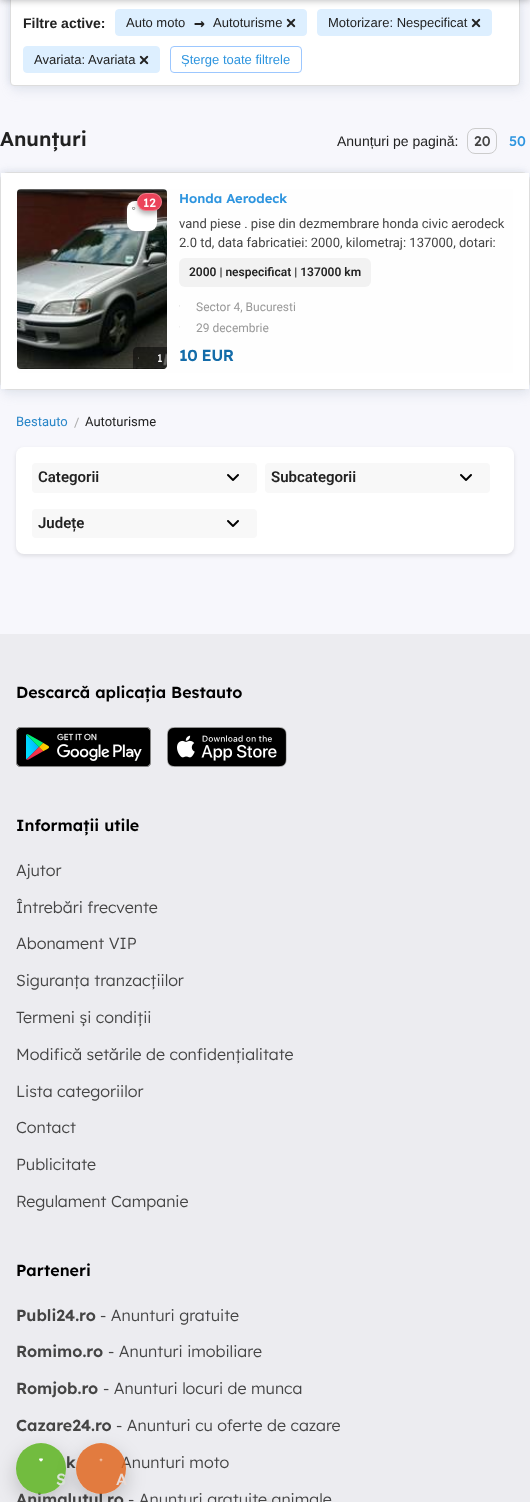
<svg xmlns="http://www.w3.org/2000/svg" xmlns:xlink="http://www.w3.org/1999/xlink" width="530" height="1502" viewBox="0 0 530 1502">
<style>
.cls-1{font:bold 14px Liberation Sans;fill:#222222}
.cls-2{font:13px Liberation Sans;fill:#222222}
.cls-3{font:bold 18px DejaVu Sans Mono;fill:#222222}
.cls-4{font:13px Liberation Sans;fill:#2e95df}
.cls-5{font:600 20px Lexend;fill:#222222}
.cls-6{font:14px Liberation Sans;fill:#222222}
.cls-7{font:500 14px Lexend;fill:#444444}
.cls-8{font:500 14px Lexend;fill:#2e95df}
.cls-9{font:500 12px Lexend;fill:#ffffff}
.cls-10{font:11px Lexend;fill:#ffffff}
.cls-11{font:600 13px Lexend;fill:#2e95df}
.cls-12{font:13px Roboto;fill:#444444}
.cls-13{font:600 12px Roboto;fill:#222222}
.cls-14{font:12px Roboto;fill:#999999}
.cls-15{font:600 16px Lexend;letter-spacing:-0.5px;fill:#146ca9}
.cls-16{font:13px Roboto;fill:#2986c8}
.cls-17{font:13px Roboto;fill:#aaaaaa}
.cls-18{font:13px Roboto;fill:#222222}
.cls-19{font:600 15px Roboto;fill:#222222}
.cls-20{font:600 16px Lexend;fill:#000000}
.cls-21{font:300 16px Lexend;fill:#444444}
.cls-22{font:600 16px Lexend;fill:#444444}
.cls-23{font:500 16px Lexend;fill:#dbe4d9}
.cls-24{font:500 16px Lexend;fill:#e7dbd7}
</style>
<defs>
<clipPath id="clip1"><path d="M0 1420H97V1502H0ZM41 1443C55 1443 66 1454 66 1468V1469C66 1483 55 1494 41 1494C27 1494 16 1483 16 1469V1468C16 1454 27 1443 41 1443Z" clip-rule="evenodd"/></clipPath>
<clipPath id="clip2"><path d="M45 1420H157V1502H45ZM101 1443C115 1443 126 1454 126 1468V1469C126 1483 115 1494 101 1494C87 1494 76 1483 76 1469V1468C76 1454 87 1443 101 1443Z" clip-rule="evenodd"/></clipPath>
</defs>
<rect width="100%" height="100%" fill="#f7f7fc"/>
<rect fill="#9aa8c0" fill-opacity="0.2" filter="blur(5.5px)" x="12" y="1" width="510" height="90" rx="4"/>
<rect fill="#9aa8c0" fill-opacity="0.2" filter="blur(3px)" x="8" y="-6" width="510" height="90" rx="4"/>
<rect fill="#ffffff" stroke="#dddddd" x="10.5" y="-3.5" width="509" height="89" rx="3.5"/>
<rect fill="#ddefff" stroke="#ddefff" x="115.5" y="9.5" width="191" height="26" rx="3.5"/>
<rect fill="#ddefff" stroke="#ddefff" x="317.5" y="9.5" width="174" height="26" rx="3.5"/>
<rect fill="#202124" fill-opacity="0.28" filter="blur(3px)" x="0" y="-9" width="530" height="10"/>
<image xlink:href="image0.png" x="286" y="18" width="10" height="10"/>
<image xlink:href="image0.png" x="471" y="18" width="10" height="10"/>
<rect fill="#ddefff" stroke="#ddefff" x="23.5" y="46.5" width="136" height="26" rx="3.5"/>
<image xlink:href="image0.png" x="139" y="55" width="10" height="10"/>
<rect fill="none" stroke="#9cc7ff" x="170.5" y="46.5" width="131" height="26" rx="3.5"/>
<rect fill="none" stroke="#cccccc" x="467.5" y="128.5" width="29" height="25" rx="7.5"/>
<rect fill="#9aa8c0" fill-opacity="0.2" filter="blur(5.5px)" x="2" y="177" width="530" height="218" rx="8"/>
<rect fill="#9aa8c0" fill-opacity="0.2" filter="blur(3px)" x="-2" y="170" width="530" height="218" rx="8"/>
<rect fill="#fefefe" stroke="#dddddd" x="0.5" y="172.5" width="529" height="217" rx="7.5"/>
<rect fill="none" stroke="#ffffff" stroke-width="16" x="9" y="181" width="512" height="200"/>
<image xlink:href="image1.png" x="17" y="189" width="150" height="180"/>
<rect fill="#aaaaaa" fill-opacity="0.5" filter="blur(2.5px)" x="127" y="202" width="30" height="30" rx="8"/>
<rect fill="#ffffff" x="127" y="201" width="30" height="30" rx="8"/>
<image xlink:href="image2.png" x="132" y="207" width="4" height="3"/>
<rect fill="#000000" fill-opacity="0.31" filter="blur(2.5px)" x="137" y="196" width="25" height="18" rx="9"/>
<rect fill="#eb445a" x="137" y="193" width="25" height="18" rx="9"/>
<rect fill="none" stroke="#ffffff" stroke-opacity="0.31" x="137.5" y="193.5" width="24" height="17" rx="8.5"/>
<path fill="#000000" fill-opacity="0.5" d="M137 347H167V365C167 367 165 369 163 369H133V351C133 349 135 347 137 347Z"/>
<image xlink:href="image3.png" x="138" y="357" width="1" height="2"/>
<rect fill="#f2f2f2" x="179" y="258" width="192" height="29" rx="6"/>
<image xlink:href="image4.png" x="179" y="305" width="1" height="2"/>
<image xlink:href="image5.png" x="179" y="326" width="1" height="2"/>
<rect fill="#000000" fill-opacity="0.1" filter="blur(2px)" x="16" y="449" width="498" height="107" rx="8"/>
<rect fill="#ffffff" x="16" y="447" width="498" height="107" rx="8"/>
<rect fill="#f8f8f8" x="32" y="463" width="225" height="30" rx="4"/>
<image xlink:href="image6.png" x="227" y="474" width="12" height="7"/>
<rect fill="#f8f8f8" x="265" y="463" width="225" height="30" rx="4"/>
<image xlink:href="image6.png" x="460" y="474" width="12" height="7"/>
<rect fill="#f8f8f8" x="32" y="509" width="225" height="29" rx="4"/>
<image xlink:href="image6.png" x="227" y="520" width="12" height="7"/>
<rect fill="#ececf0" x="0" y="634" width="530" height="868"/>
<image xlink:href="image7.png" x="16" y="727" width="135" height="40"/>
<image xlink:href="image8.png" x="167" y="727" width="120" height="40"/>
<g clip-path="url(#clip1)">
<rect fill="#000000" fill-opacity="0.2" filter="blur(10px)" x="16" y="1451" width="50" height="51" rx="25"/>
</g>
<rect fill="#cccccc" filter="blur(5px)" x="247" y="1502" width="36" height="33" rx="18"/>
<text class="cls-1" x="23" y="28">Filtre active:</text>
<text class="cls-2" x="126" y="27">Auto moto</text>
<text class="cls-3" x="194" y="29">→</text>
<text class="cls-2" x="213" y="27">Autoturisme</text>
<text class="cls-2" x="328" y="27">Motorizare: Nespecificat</text>
<text class="cls-2" x="34" y="64">Avariata: Avariata</text>
<text class="cls-4" x="181" y="64">Șterge toate filtrele</text>
<text class="cls-5" x="0" y="146">Anunțuri</text>
<text class="cls-6" x="337" y="146">Anunțuri pe pagină:</text>
<text class="cls-7" x="474" y="146">20</text>
<text class="cls-8" x="509" y="146">50</text>
<text class="cls-9" x="143" y="207">12</text>
<text class="cls-10" x="157" y="362">1</text>
<text class="cls-11" x="179" y="203">Honda Aerodeck</text>
<text class="cls-12"><tspan x="179" y="228">vand piese . pise din dezmembrare honda civic aerodeck</tspan><tspan x="179" y="247">2.0 td, data fabricatiei: 2000, kilometraj: 137000, dotari:</tspan></text>
<text class="cls-13" x="189" y="276">2000 | nespecificat | 137000 km</text>
<text class="cls-14"><tspan x="196" y="311">Sector 4, Bucuresti</tspan><tspan x="196" y="332">29 decembrie</tspan></text>
<text class="cls-15" x="179" y="361">10 EUR</text>
<text class="cls-16" x="16" y="426">Bestauto</text>
<text class="cls-17" x="74" y="427">/</text>
<text class="cls-18" x="85" y="426">Autoturisme</text>
<text class="cls-19" x="38" y="482">Categorii</text>
<text class="cls-19" x="271" y="482">Subcategorii</text>
<text class="cls-19" x="38" y="528">Județe</text>
<text class="cls-20" x="16" y="698">Descarcă aplicația Bestauto</text>
<text class="cls-20" x="16" y="831">Informații utile</text>
<text class="cls-21" x="16" y="876">Ajutor</text>
<text class="cls-21" x="16" y="913">Întrebări frecvente</text>
<text class="cls-21" x="16" y="949">Abonament VIP</text>
<text class="cls-21" x="16" y="986">Siguranța tranzacțiilor</text>
<text class="cls-21" x="16" y="1023">Termeni și condiții</text>
<text class="cls-21" x="16" y="1060">Modifică setările de confidențialitate</text>
<text class="cls-21" x="16" y="1097">Lista categoriilor</text>
<text class="cls-21" x="16" y="1133">Contact</text>
<text class="cls-21" x="16" y="1170">Publicitate</text>
<text class="cls-21" x="16" y="1207">Regulament Campanie</text>
<text class="cls-20" x="16" y="1276">Parteneri</text>
<text class="cls-22" x="16" y="1321">Publi24.ro</text>
<text class="cls-21" x="100" y="1321">- Anunturi gratuite</text>
<text class="cls-22" x="16" y="1357">Romimo.ro</text>
<text class="cls-21" x="108" y="1357">- Anunturi imobiliare</text>
<text class="cls-22" x="16" y="1394">Romjob.ro</text>
<text class="cls-21" x="103" y="1394">- Anunturi locuri de munca</text>
<text class="cls-22" x="16" y="1431">Cazare24.ro</text>
<text class="cls-21" x="116" y="1431">- Anunturi cu oferte de cazare</text>
<text class="cls-22" x="66" y="1468">k</text>
<text class="cls-21" x="121" y="1468">Anunturi moto</text>
<text class="cls-22" x="16" y="1505">Animalutul.ro</text>
<text class="cls-21" x="128" y="1505">- Anunturi gratuite animale</text>
<rect fill="#5db420" fill-opacity="0.85" x="16" y="1443" width="50" height="51" rx="25"/>
<image xlink:href="image9.png" x="39" y="1458" width="4" height="4"/>
<text class="cls-23" x="56" y="1485">S</text>
<g clip-path="url(#clip2)">
<rect fill="#000000" fill-opacity="0.2" filter="blur(10px)" x="76" y="1451" width="50" height="51" rx="25"/>
</g>
<rect fill="#e06720" fill-opacity="0.85" x="76" y="1443" width="50" height="51" rx="25"/>
<image xlink:href="image10.png" x="99" y="1458" width="4" height="4"/>
<text class="cls-24" x="116" y="1485">A</text>
</svg>
